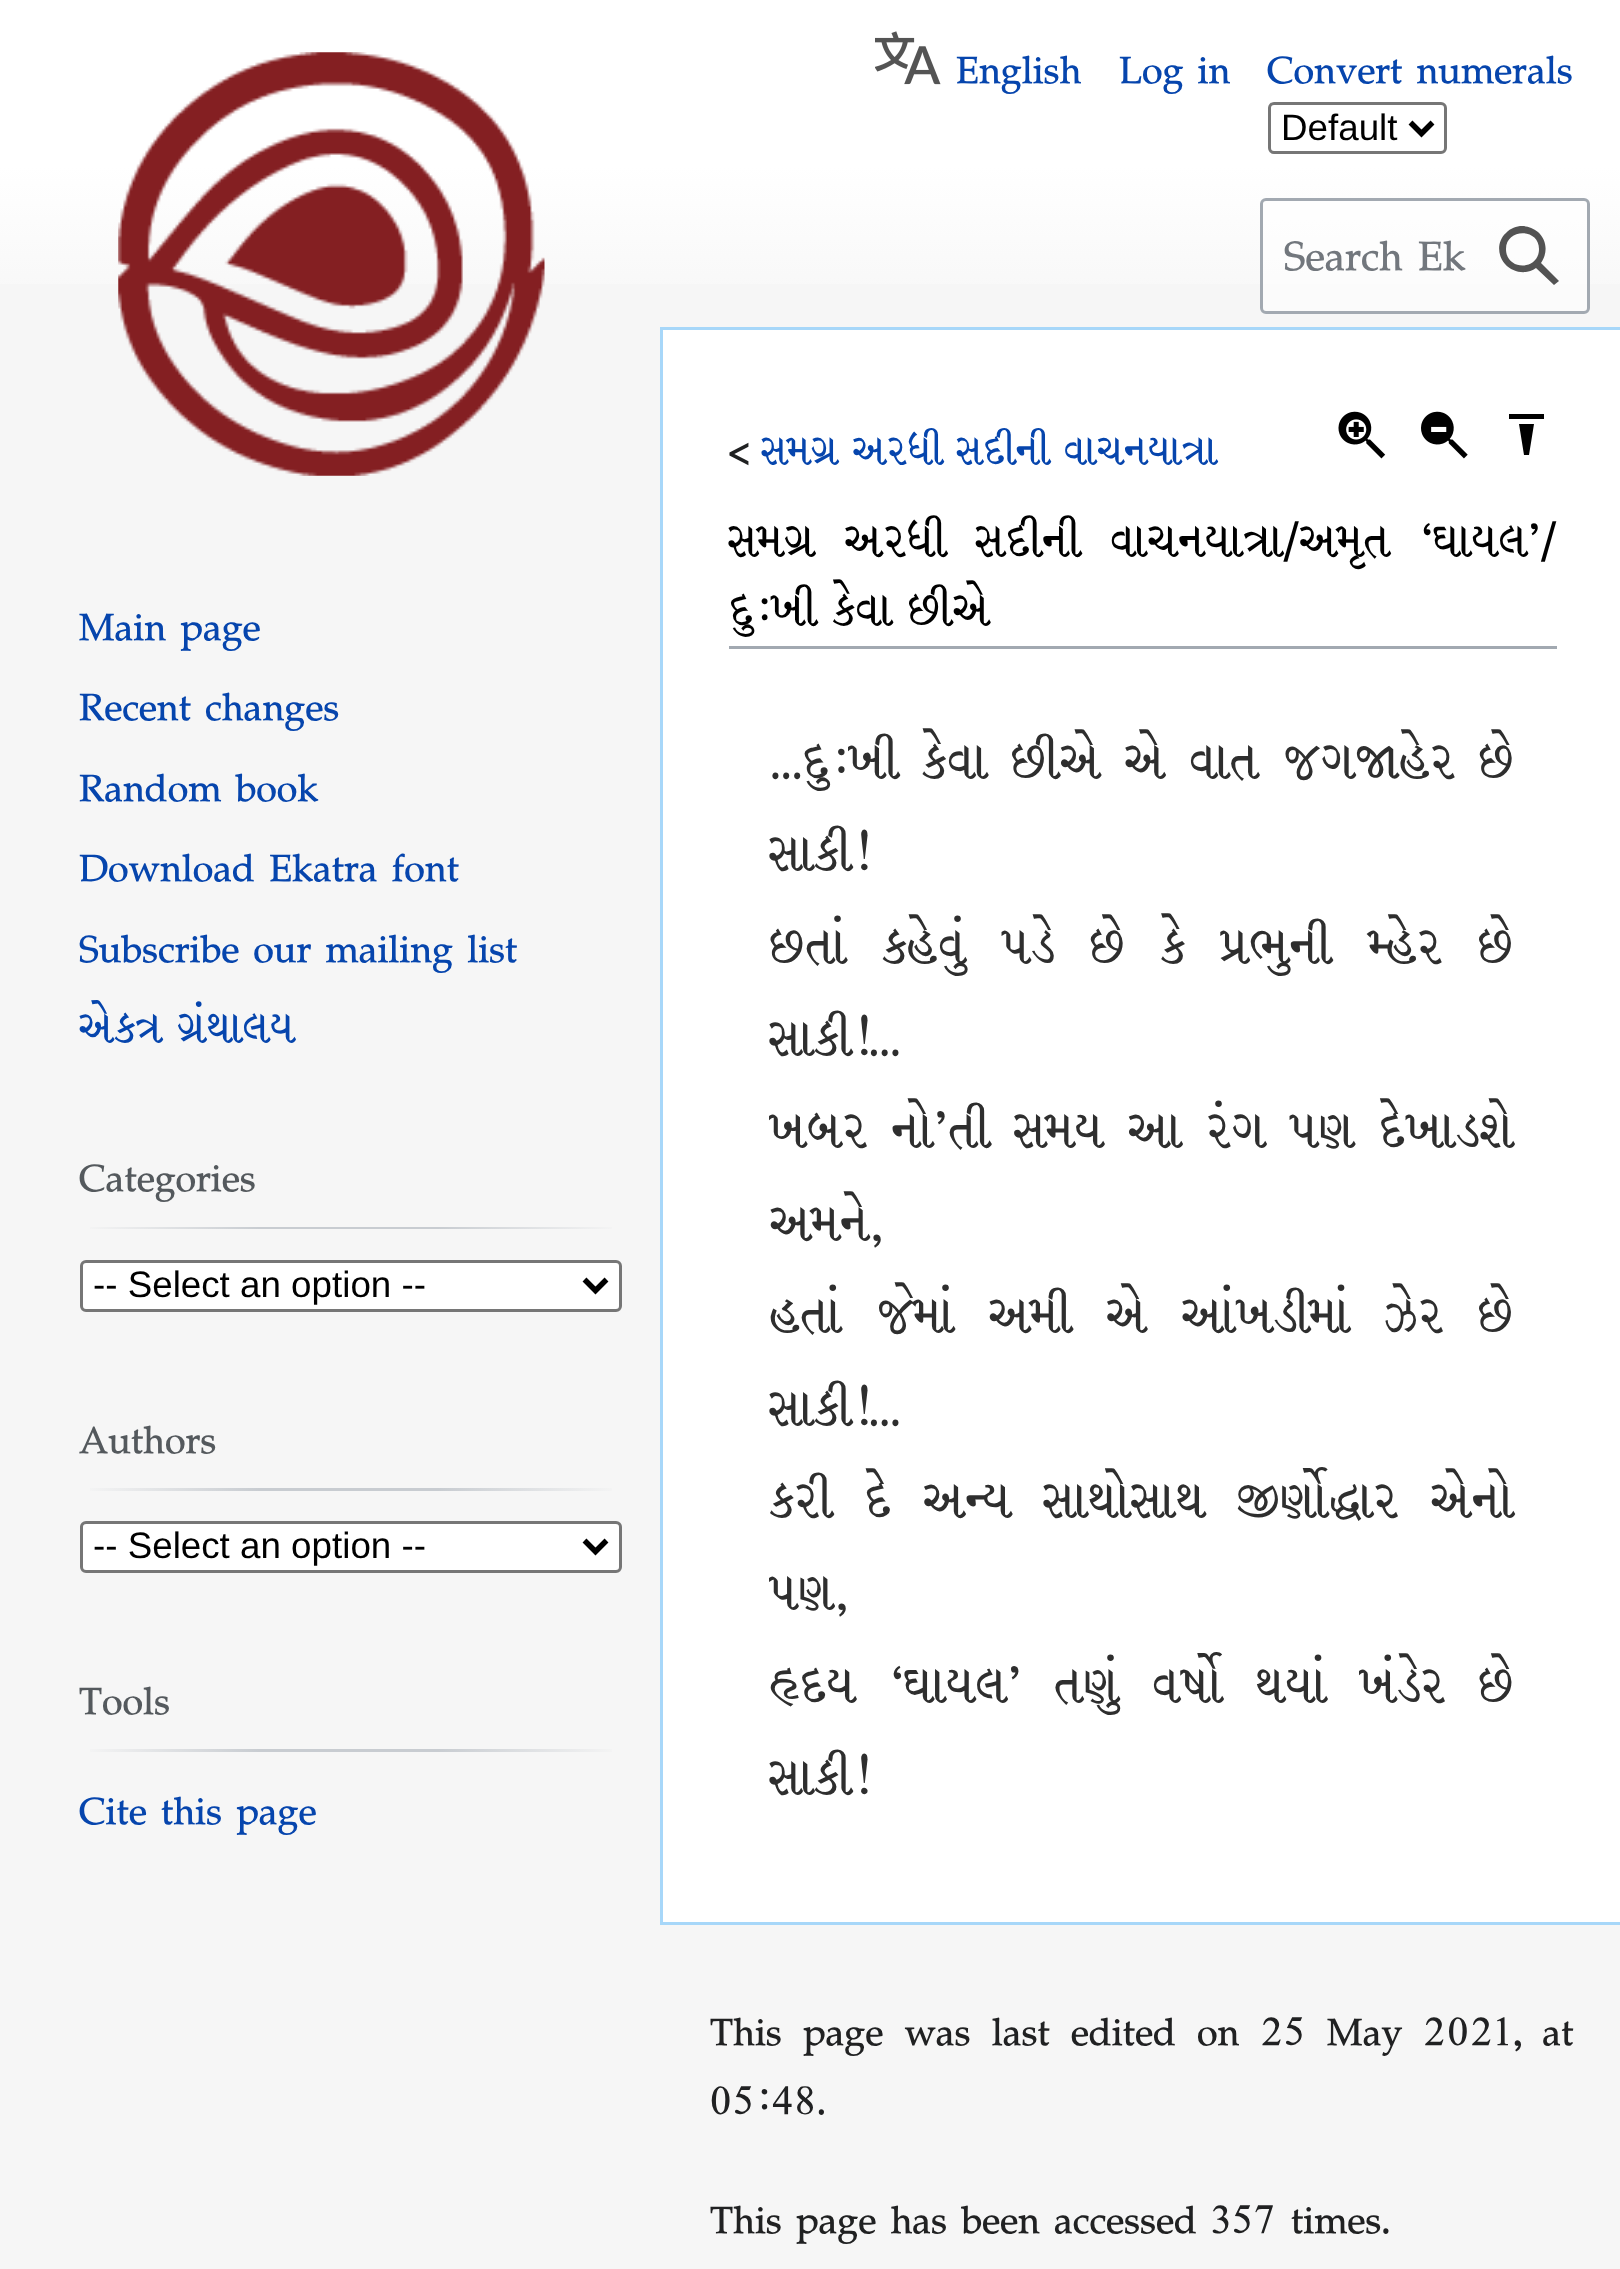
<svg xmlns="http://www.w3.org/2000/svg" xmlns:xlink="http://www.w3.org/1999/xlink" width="1620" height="2269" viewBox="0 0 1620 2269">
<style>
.cls-1{font:49.5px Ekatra;fill:#0645ad}
.cls-2{font:36.75px Liberation Sans;fill:#000000}
.cls-3{font:53.5px Ekatra;fill:#72777d}
.cls-4{font:49.5px Ekatra;fill:#54595d}
.cls-5{font:46.75px Ekatra;fill:#202122}
.cls-6{font:46.75px Ekatra;fill:#0645ad}
.cls-7{font:52.75px Ekatra;fill:#000000}
.cls-8{font:57.75px Ekatra;fill:#2e2e2e}
.cls-9{font:49.5px Ekatra;fill:#202122}
</style>
<defs>
<linearGradient id="g1" gradientUnits="userSpaceOnUse" x1="811" y1="0" x2="811" y2="330"><stop offset="0.5" stop-color="#ffffff"/><stop offset="1" stop-color="#f6f6f6"/></linearGradient>
<linearGradient id="g2" gradientUnits="userSpaceOnUse" x1="80" y1="1228" x2="622" y2="1228"><stop offset="0" stop-color="#f6f6f6"/><stop offset="0.33" stop-color="#c8ccd1"/><stop offset="0.66" stop-color="#c8ccd1"/><stop offset="1" stop-color="#f6f6f6"/></linearGradient>
<linearGradient id="g3" gradientUnits="userSpaceOnUse" x1="80" y1="1489" x2="622" y2="1489"><stop offset="0" stop-color="#f6f6f6"/><stop offset="0.33" stop-color="#c8ccd1"/><stop offset="0.66" stop-color="#c8ccd1"/><stop offset="1" stop-color="#f6f6f6"/></linearGradient>
<linearGradient id="g4" gradientUnits="userSpaceOnUse" x1="80" y1="1750" x2="622" y2="1750"><stop offset="0" stop-color="#f6f6f6"/><stop offset="0.33" stop-color="#c8ccd1"/><stop offset="0.66" stop-color="#c8ccd1"/><stop offset="1" stop-color="#f6f6f6"/></linearGradient>
</defs>
<rect width="100%" height="100%" fill="#f6f6f6"/>
<rect fill="url(#g1)" x="0" y="0" width="1620" height="284"/>
<image xlink:href="image0.png" x="875" y="31" width="66" height="54"/>
<rect fill="none" stroke="#767676" stroke-width="3" x="1269.5" y="103.5" width="176" height="49" rx="4.5"/>
<path fill="none" stroke="#000000" stroke-width="5.5" d="M1410.5 122.5L1421.5 133.5L1432.5 122.5"/>
<rect fill="#ffffff" fill-opacity="0.5" stroke="#a2a9b1" stroke-width="3" x="1261.5" y="199.5" width="327" height="113" rx="4.5"/>
<path fill="#535353" fill-rule="evenodd" d="M1536 268C1527 275 1513 273 1505 264C1497 255 1497 241 1506 233C1515 224 1528 224 1538 232C1547 240 1548 253 1541 263L1559 281L1554 285ZM1539 249C1539 271 1506 271 1506 249C1506 228 1539 228 1539 249Z"/>
<image xlink:href="image1.png" x="118" y="52" width="427" height="424"/>
<rect fill="url(#g2)" x="90" y="1227" width="522" height="2"/>
<rect fill="#ffffff" stroke="#767676" stroke-width="3" x="81.5" y="1261.5" width="539" height="49" rx="4.5"/>
<path fill="none" stroke="#000000" stroke-width="5.5" d="M584.5 1279.5L595.5 1290.5L606.5 1279.5"/>
<rect fill="url(#g3)" x="90" y="1488" width="522" height="3"/>
<rect fill="#ffffff" stroke="#767676" stroke-width="3" x="81.5" y="1522.5" width="539" height="49" rx="4.5"/>
<path fill="none" stroke="#000000" stroke-width="5.5" d="M584.5 1540.5L595.5 1551.5L606.5 1540.5"/>
<rect fill="url(#g4)" x="90" y="1749" width="522" height="3"/>
<rect fill="#ffffff" x="663" y="330" width="957" height="1592"/>
<rect fill="#a7d7f9" x="660" y="327" width="960" height="3"/>
<rect fill="#a7d7f9" x="660" y="1922" width="960" height="3"/>
<rect fill="#a7d7f9" x="660" y="327" width="3" height="1598"/>
<image xlink:href="image2.png" x="1338" y="411" width="48" height="48"/>
<image xlink:href="image3.png" x="1421" y="411" width="47" height="48"/>
<path fill="#000000" d="M1509 414H1544V419H1509ZM1519 424H1534L1529 455H1524Z"/>
<rect fill="#a2a9b1" x="729" y="646" width="828" height="3"/>
<text class="cls-1" x="956" y="83">English</text>
<text class="cls-1" x="1119" y="83">Log in</text>
<text class="cls-1" x="1267" y="83">Convert numerals</text>
<text class="cls-2" x="1281" y="140">Default</text>
<text class="cls-3" x="1284" y="270">Search Ek</text>
<text class="cls-1"><tspan x="79" y="640">Main page</tspan><tspan x="79" y="720">Recent changes</tspan><tspan x="79" y="801">Random book</tspan><tspan x="79" y="881">Download Ekatra font</tspan><tspan x="79" y="962">Subscribe our mailing list</tspan><tspan x="79" y="1042">એકત્ર ગ્રંથાલય</tspan></text>
<text class="cls-4" x="79" y="1191">Categories</text>
<text class="cls-2" x="93" y="1297">-- Select an option --</text>
<text class="cls-4" x="79" y="1453">Authors</text>
<text class="cls-2" x="93" y="1558">-- Select an option --</text>
<text class="cls-4" x="79" y="1714">Tools</text>
<text class="cls-1" x="79" y="1824">Cite this page</text>
<text class="cls-5" x="729" y="464">&lt;</text>
<text class="cls-6" x="762" y="464">સમગ્ર અરધી સદીની વાચનયાત્રા</text>
<text class="cls-7"><tspan x="729" y="556" word-spacing="13.5">સમગ્ર અરધી સદીની વાચનયાત્રા/અમૃત ‘ઘાયલ’/</tspan><tspan x="729" y="625">દુ:ખી કેવા છીએ</tspan></text>
<text class="cls-8"><tspan x="770" y="778" word-spacing="6.25">...દુ:ખી કેવા છીએ એ વાત જગજાહેર છે</tspan><tspan x="770" y="870">સાકી!</tspan><tspan x="770" y="963" word-spacing="18.5">છતાં કહેવું પડે છે કે પ્રભુની મ્હેર છે</tspan><tspan x="770" y="1055">સાકી!...</tspan><tspan x="770" y="1147" word-spacing="6.75">ખબર નો’તી સમય આ રંગ પણ દેખાડશે</tspan><tspan x="770" y="1240">અમને,</tspan><tspan x="770" y="1332" word-spacing="17">હતાં જેમાં અમી એ આંખડીમાં ઝેર છે</tspan><tspan x="770" y="1425">સાકી!...</tspan><tspan x="770" y="1517" word-spacing="14.5">કરી દે અન્ય સાથોસાથ જીર્ણોદ્ધાર એનો</tspan><tspan x="770" y="1609">પણ,</tspan><tspan x="770" y="1702" word-spacing="15.5">હૃદય ‘ઘાયલ’ તણું વર્ષો થયાં ખંડેર છે</tspan><tspan x="770" y="1794">સાકી!</tspan></text>
<text class="cls-9"><tspan x="710" y="2045" word-spacing="7">This page was last edited on 25 May 2021, at</tspan><tspan x="710" y="2114">05:48.</tspan></text>
<text class="cls-9" x="710" y="2233">This page has been accessed 357 times.</text>
</svg>
